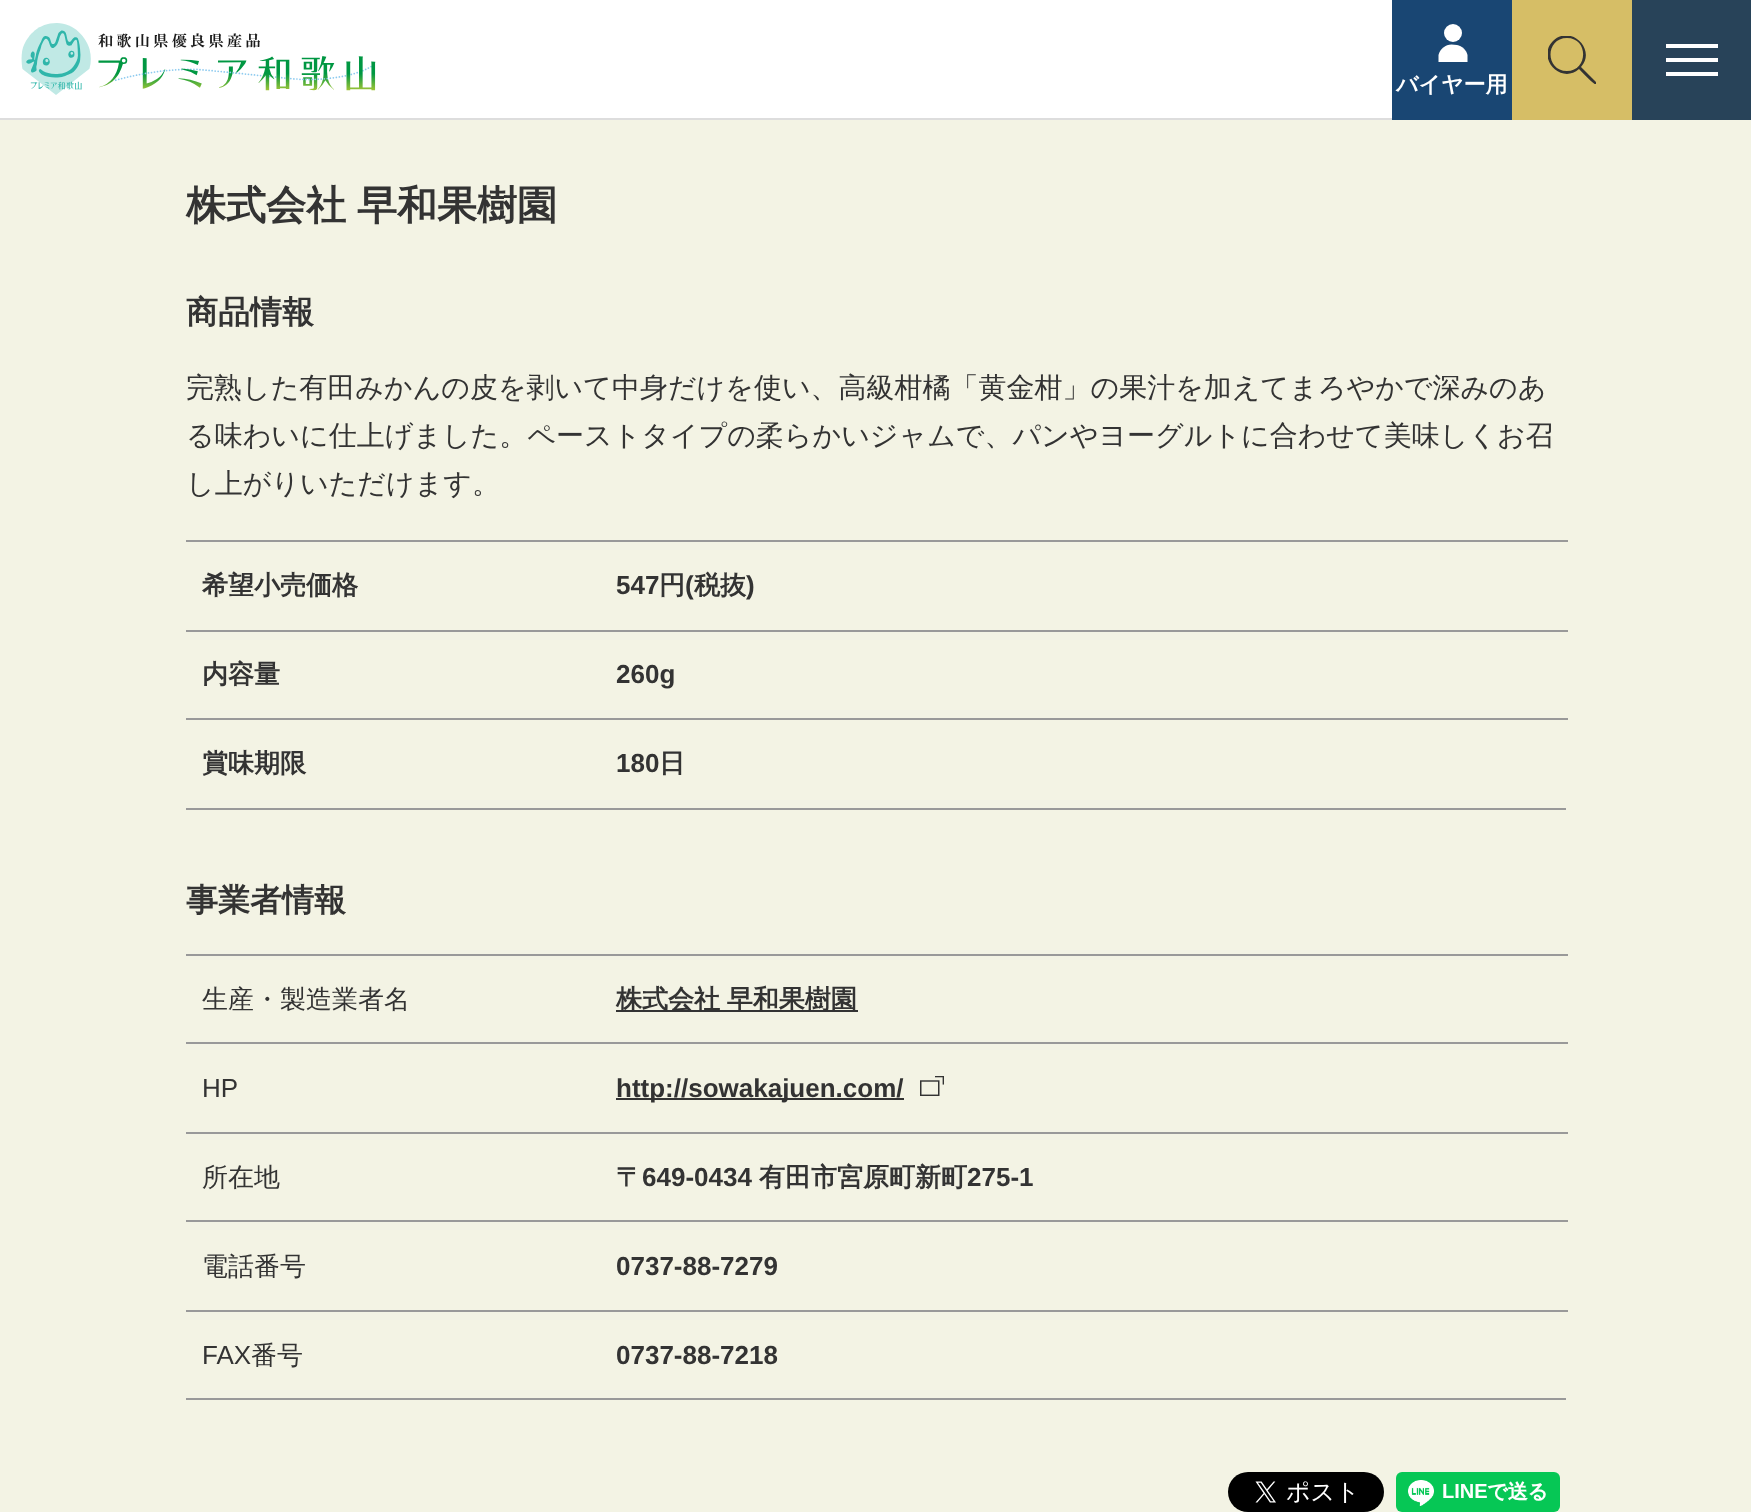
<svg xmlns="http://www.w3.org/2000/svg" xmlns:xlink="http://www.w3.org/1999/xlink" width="1751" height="1512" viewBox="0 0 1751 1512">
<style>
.cls-1{font:bold 22px WenQuanYi Zen Hei;fill:#ffffff}
.cls-2{font:bold 40px WenQuanYi Zen Hei;fill:#333333}
.cls-3{font:bold 32px WenQuanYi Zen Hei;fill:#333333}
.cls-4{font:500 28px WenQuanYi Zen Hei;fill:#333333}
.cls-5{font:bold 26px WenQuanYi Zen Hei;fill:#333333}
.cls-6{font:bold 26px Liberation Sans;fill:#333333}
.cls-7{font:500 26px WenQuanYi Zen Hei;fill:#333333}
.cls-8{font:26px Liberation Sans;fill:#333333}
</style>
<defs>
<clipPath id="clip1"><rect x="1548" y="36" width="48" height="48"/></clipPath>
</defs>
<rect width="100%" height="100%" fill="#f3f3e4"/>
<rect fill="#ffffff" x="0" y="0" width="1392" height="118"/>
<rect fill="#dddddd" x="0" y="118" width="1392" height="2"/>
<image xlink:href="image0.png" x="21" y="23" width="355" height="72"/>
<rect fill="#194673" x="1392" y="0" width="120" height="120"/>
<circle fill="#ffffff" cx="1453" cy="33" r="9"/>
<path fill="#ffffff" d="M1451.5 44.5L1457 45C1462 46 1466.5 50 1467.5 55V62H1438.5V55C1440 49 1445.5 44.5 1451.5 44.5Z"/>
<rect fill="#284359" x="1632" y="0" width="119" height="120"/>
<rect fill="#ffffff" x="1666" y="44" width="52" height="4"/>
<rect fill="#ffffff" x="1666" y="58" width="52" height="4"/>
<rect fill="#ffffff" x="1666" y="72" width="52" height="4"/>
<rect fill="#d6be66" x="1512" y="0" width="120" height="120"/>
<g clip-path="url(#clip1)">
<path fill="#333333" d="M1597 83L1581 67C1597 49 1570 24 1553 41C1536 58 1561 85 1579 69C1582 72 1595 86 1597 85C1597 85 1597 84 1597 83ZM1567 71C1545 71 1545 38 1567 38C1589 38 1588 71 1567 71Z"/>
</g>
<rect fill="#999999" x="186" y="808" width="1380" height="2"/>
<rect fill="#999999" x="186" y="540" width="1382" height="2"/>
<rect fill="#999999" x="186" y="630" width="1382" height="2"/>
<rect fill="#999999" x="186" y="718" width="1382" height="2"/>
<rect fill="#999999" x="186" y="1398" width="1380" height="2"/>
<rect fill="#999999" x="186" y="954" width="1382" height="2"/>
<rect fill="#333333" x="616" y="1010" width="242" height="2"/>
<rect fill="#999999" x="186" y="1042" width="1382" height="2"/>
<rect fill="#333333" x="616" y="1098" width="288" height="2"/>
<image xlink:href="image1.png" x="920" y="1076" width="24" height="20"/>
<rect fill="#999999" x="186" y="1132" width="1382" height="2"/>
<rect fill="#999999" x="186" y="1220" width="1382" height="2"/>
<rect fill="#999999" x="186" y="1310" width="1382" height="2"/>
<image xlink:href="image2.png" x="1228" y="1472" width="156" height="40"/>
<image xlink:href="image3.png" x="1396" y="1472" width="164" height="40"/>
<text class="cls-1" x="1396" y="92">バイヤー用</text>
<text class="cls-2" x="186" y="219" word-spacing="-1">株式会社 早和果樹園</text>
<text class="cls-3" x="186" y="323">商品情報</text>
<text class="cls-4"><tspan x="186" y="397">完熟した有田みかんの皮を剥いて中身だけを使い、高級柑橘「黄金柑」の果汁を加えてまろやかで深みのあ</tspan><tspan x="186" y="445">る味わいに仕上げました。ペーストタイプの柔らかいジャムで、パンやヨーグルトに合わせて美味しくお召</tspan><tspan x="186" y="493">し上がりいただけます。</tspan></text>
<text class="cls-5" x="202" y="594">希望小売価格</text>
<text class="cls-6" x="616" y="594">547</text>
<text class="cls-5" x="659" y="594">円</text>
<text class="cls-6" x="685" y="594">(</text>
<text class="cls-5" x="694" y="594">税抜</text>
<text class="cls-6" x="746" y="594">)</text>
<text class="cls-5" x="202" y="683">内容量</text>
<text class="cls-6" x="616" y="683">260g</text>
<text class="cls-5" x="202" y="772">賞味期限</text>
<text class="cls-6" x="616" y="772">180</text>
<text class="cls-5" x="659" y="772">日</text>
<text class="cls-3" x="186" y="911">事業者情報</text>
<text class="cls-7" x="202" y="1008">生産・製造業者名</text>
<text class="cls-5" x="616" y="1008" word-spacing="-1">株式会社 早和果樹園</text>
<text class="cls-8" x="202" y="1097">HP</text>
<text class="cls-6" x="616" y="1097">http://sowakajuen.com/</text>
<text class="cls-7" x="202" y="1186">所在地</text>
<text class="cls-5" x="616" y="1186">〒</text>
<text class="cls-6" x="642" y="1186">649-0434</text>
<text class="cls-5" x="759" y="1186">有田市宮原町新町</text>
<text class="cls-6" x="967" y="1186">275-1</text>
<text class="cls-7" x="202" y="1275">電話番号</text>
<text class="cls-6" x="616" y="1275">0737-88-7279</text>
<text class="cls-8" x="202" y="1364">FAX</text>
<text class="cls-7" x="251" y="1364">番号</text>
<text class="cls-6" x="616" y="1364">0737-88-7218</text>
</svg>
